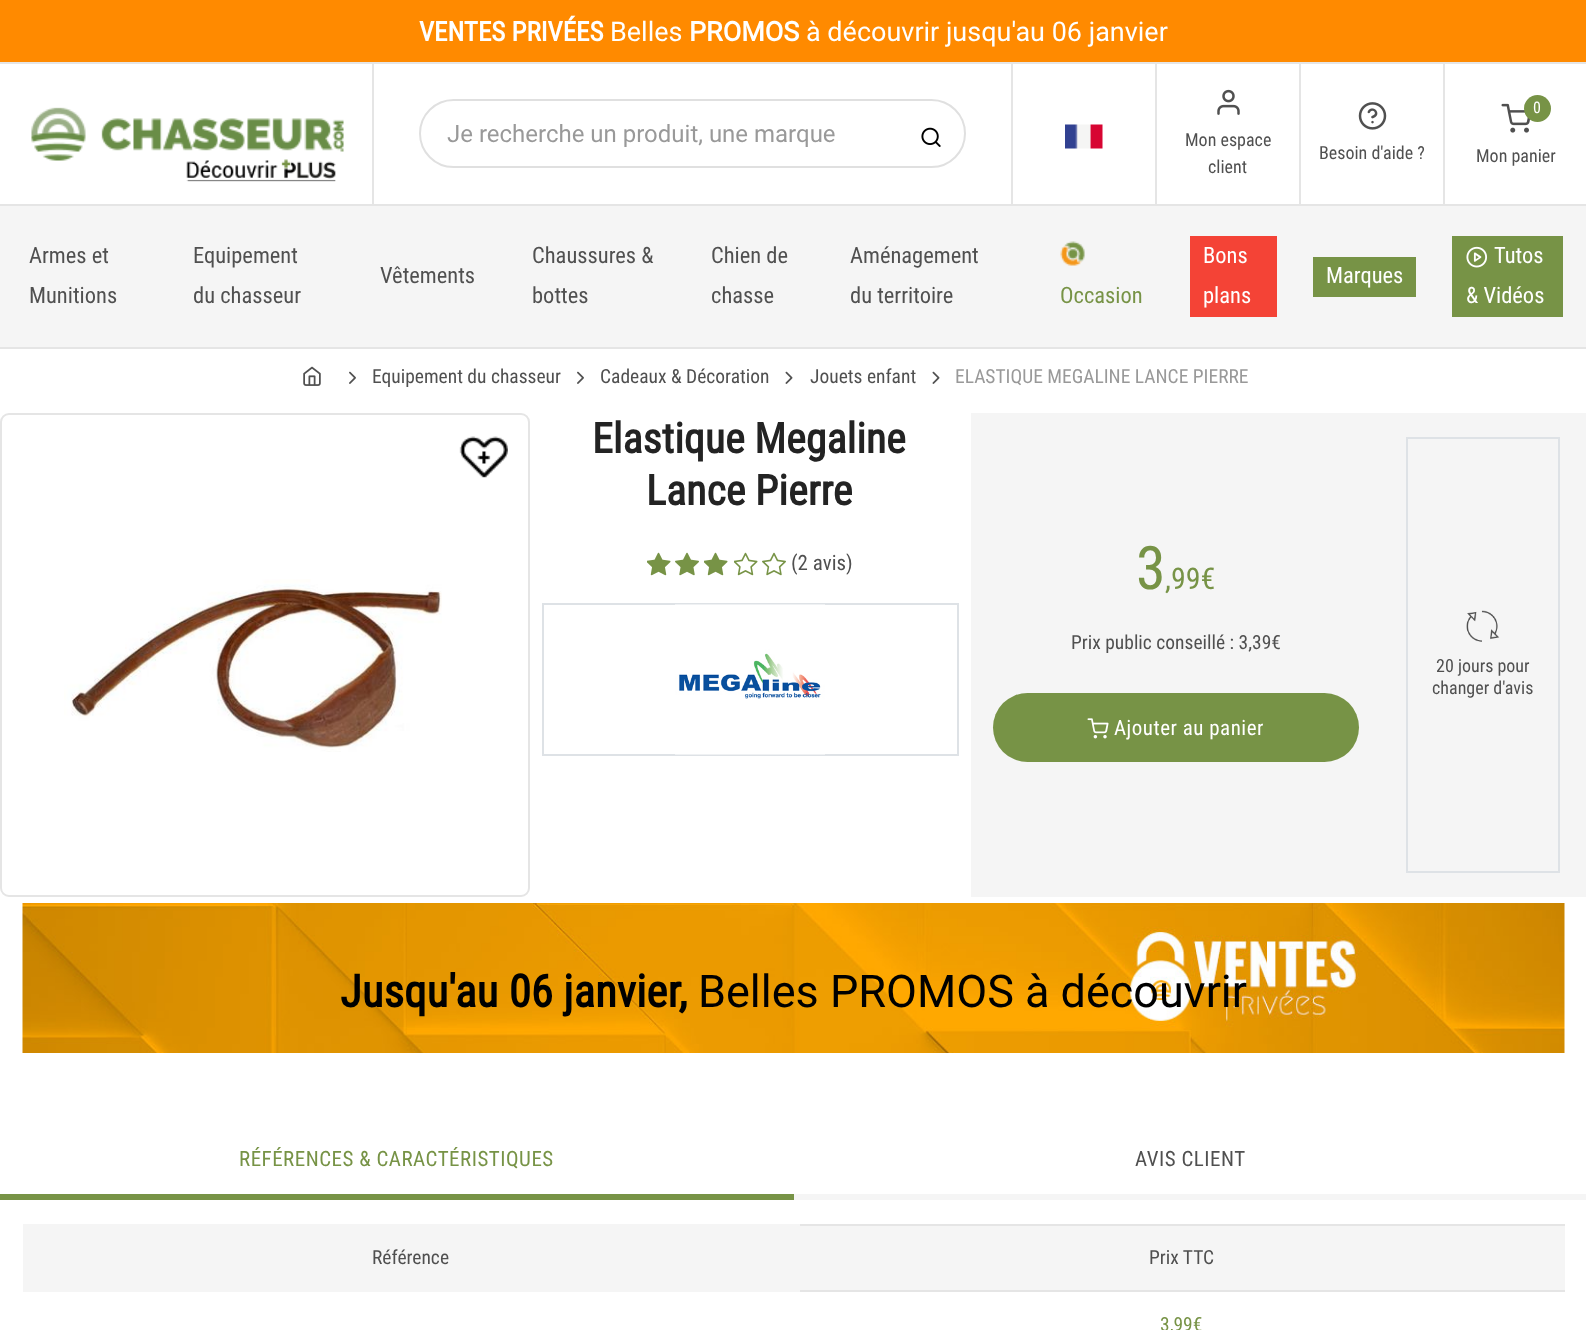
<svg xmlns="http://www.w3.org/2000/svg" xmlns:xlink="http://www.w3.org/1999/xlink" width="1586" height="1330" viewBox="0 0 1586 1330">
<style>
.cls-1{font:bold 27px Roboto Condensed;fill:#ffffff}
.cls-2{font:27px Roboto;fill:#ffffff}
.cls-3{font:bold 27px Roboto;fill:#ffffff}
.cls-4{font:24px Roboto;fill:#999999}
.cls-5{font:18px Roboto Condensed;fill:#505050}
.cls-6{font:16px Roboto Condensed;fill:#ffffff}
.cls-7{font:22.5px Roboto Condensed;fill:#505050}
.cls-8{font:22.5px Roboto Condensed;fill:#ffffff}
.cls-9{font:22.5px Roboto Condensed;fill:#779346}
.cls-10{font:19.5px Roboto Condensed;fill:#505050}
.cls-11{font:19.5px Roboto Condensed;fill:#999999}
.cls-12{font:bold 42px Roboto Condensed;fill:#232323}
.cls-13{font:21px Roboto Condensed;fill:#505050}
.cls-14{font:60px Roboto Condensed;fill:#779346}
.cls-15{font:30px Roboto Condensed;fill:#779346}
.cls-16{font:21px Roboto Condensed;letter-spacing:0.5px;fill:#ffffff}
.cls-17{font:bold 45px Roboto Condensed;fill:#000000}
.cls-18{font:45px Roboto;fill:#000000}
.cls-19{font:21px Roboto Condensed;letter-spacing:0.5px;fill:#779346}
.cls-20{font:21px Roboto Condensed;letter-spacing:0.5px;fill:#505050}
.cls-21{font:19.5px Roboto Condensed;fill:#779346}
</style>
<rect width="100%" height="100%" fill="#ffffff"/>
<rect fill="#ff8a00" x="0" y="0" width="1586" height="62"/>
<rect fill="#e5e5e5" x="0" y="62" width="1586" height="2"/>
<rect fill="#e5e5e5" x="0" y="204" width="1586" height="2"/>
<rect fill="#e5e5e5" x="372" y="63" width="2" height="141"/>
<image xlink:href="image0.png" x="31" y="107" width="313" height="54"/>
<image xlink:href="image1.png" x="186" y="159" width="150" height="23"/>
<rect fill="none" stroke="#e0e0e0" stroke-width="2" x="420" y="100" width="545" height="67" rx="33.5"/>
<image xlink:href="image2.png" x="921" y="127" width="20" height="20"/>
<rect fill="#e5e5e5" x="1011" y="63" width="2" height="141"/>
<image xlink:href="image3.png" x="1065" y="124" width="38" height="25"/>
<rect fill="#e5e5e5" x="1155" y="63" width="2" height="141"/>
<image xlink:href="image4.png" x="1217" y="89" width="23" height="26"/>
<rect fill="#e5e5e5" x="1299" y="63" width="2" height="141"/>
<image xlink:href="image5.png" x="1358" y="102" width="29" height="28"/>
<rect fill="#e5e5e5" x="1443" y="63" width="2" height="141"/>
<image xlink:href="image6.png" x="1501" y="103" width="30" height="30"/>
<circle fill="#779346" cx="1537.5" cy="108.5" r="13.5"/>
<rect fill="#f5f5f5" x="0" y="206" width="1586" height="141"/>
<rect fill="#e5e5e5" x="0" y="347" width="1586" height="2"/>
<rect fill="#f44336" x="1190" y="236" width="87" height="81"/>
<rect fill="#779346" x="1313" y="257" width="103" height="40"/>
<rect fill="#779346" x="1452" y="236" width="111" height="81"/>
<image xlink:href="image7.png" x="1466" y="246" width="22" height="22"/>
<image xlink:href="image8.png" x="1060" y="241" width="25" height="25"/>
<image xlink:href="image9.png" x="303" y="366" width="18" height="20"/>
<image xlink:href="image10.png" x="349" y="371" width="7" height="13"/>
<image xlink:href="image10.png" x="577" y="371" width="7" height="13"/>
<image xlink:href="image11.png" x="785" y="371" width="8" height="13"/>
<image xlink:href="image11.png" x="932" y="371" width="8" height="13"/>
<rect fill="none" stroke="#e5e5e5" stroke-width="2" x="1" y="414" width="528" height="482" rx="8"/>
<image xlink:href="image12.png" x="459" y="436" width="49" height="42"/>
<image xlink:href="image13.png" x="64" y="579" width="378" height="173"/>
<image xlink:href="image14.png" x="647" y="552" width="24" height="24"/>
<image xlink:href="image15.png" x="675" y="552" width="24" height="24"/>
<image xlink:href="image14.png" x="704" y="552" width="24" height="24"/>
<image xlink:href="image16.png" x="734" y="552" width="24" height="24"/>
<image xlink:href="image17.png" x="762" y="552" width="24" height="24"/>
<rect fill="none" stroke="#dee2e6" stroke-width="2" x="543" y="604" width="415" height="151"/>
<image xlink:href="image18.png" x="675" y="604" width="150" height="151"/>
<rect fill="#f5f5f5" x="971" y="413" width="615" height="484"/>
<rect fill="#779346" x="993" y="693" width="366" height="69" rx="34.5"/>
<image xlink:href="image19.png" x="1087" y="718" width="22" height="21"/>
<rect fill="none" stroke="#dee2e6" stroke-width="2" x="1407" y="438" width="152" height="434"/>
<image xlink:href="image20.png" x="1466" y="610" width="34" height="32"/>
<image xlink:href="image21.png" x="22" y="903" width="1543" height="150"/>
<rect fill="#779346" x="0" y="1194" width="794" height="6"/>
<rect fill="#f5f5f5" x="794" y="1194" width="792" height="6"/>
<rect fill="#e5e5e5" x="800" y="1224" width="765" height="2"/>
<rect fill="#f5f5f5" x="23" y="1224" width="777" height="68"/>
<rect fill="#f5f5f5" x="800" y="1226" width="765" height="64"/>
<rect fill="#e5e5e5" x="800" y="1290" width="765" height="2"/>
<text class="cls-1" x="419" y="41">VENTES PRIVÉES</text>
<text class="cls-2" x="610" y="41">Belles</text>
<text class="cls-3" x="689" y="41">PROMOS</text>
<text class="cls-2" x="806" y="41">à découvrir jusqu'au 06 janvier</text>
<text class="cls-4" x="447" y="142">Je recherche un produit, une marque</text>
<text class="cls-5" x="1185" y="146">Mon espace</text>
<text class="cls-5" x="1208" y="173">client</text>
<text class="cls-5" x="1319" y="159">Besoin d'aide ?</text>
<text class="cls-6" x="1533" y="113">0</text>
<text class="cls-5" x="1476" y="162">Mon panier</text>
<text class="cls-7"><tspan x="29" y="263">Armes et</tspan><tspan x="29" y="303">Munitions</tspan></text>
<text class="cls-7"><tspan x="193" y="263">Equipement</tspan><tspan x="193" y="303">du chasseur</tspan></text>
<text class="cls-7" x="380" y="283">Vêtements</text>
<text class="cls-7"><tspan x="532" y="263">Chaussures &amp;</tspan><tspan x="532" y="303">bottes</tspan></text>
<text class="cls-7"><tspan x="711" y="263">Chien de</tspan><tspan x="711" y="303">chasse</tspan></text>
<text class="cls-7"><tspan x="850" y="263">Aménagement</tspan><tspan x="850" y="303">du territoire</tspan></text>
<text class="cls-8"><tspan x="1203" y="263">Bons</tspan><tspan x="1203" y="303">plans</tspan></text>
<text class="cls-8" x="1326" y="283">Marques</text>
<text class="cls-8" x="1494" y="263">Tutos</text>
<text class="cls-8" x="1466" y="303">&amp; Vidéos</text>
<text class="cls-9" x="1060" y="303">Occasion</text>
<text class="cls-10" x="372" y="383">Equipement du chasseur</text>
<text class="cls-10" x="600" y="383">Cadeaux &amp; Décoration</text>
<text class="cls-10" x="810" y="383">Jouets enfant</text>
<text class="cls-11" x="955" y="383">ELASTIQUE MEGALINE LANCE PIERRE</text>
<text class="cls-12" x="592" y="453">Elastique Megaline</text>
<text class="cls-12" x="646" y="505">Lance Pierre</text>
<text class="cls-13" x="791" y="570">(2 avis)</text>
<text class="cls-14" x="1136" y="589">3</text>
<text class="cls-15" x="1165" y="589">,99€</text>
<text class="cls-10" x="1071" y="649">Prix public conseillé : 3,39€</text>
<text class="cls-16" x="1114" y="735">Ajouter au panier</text>
<text class="cls-5" x="1436" y="672">20 jours pour</text>
<text class="cls-5" x="1432" y="694">changer d'avis</text>
<text class="cls-17" x="340" y="1007">Jusqu'au 06 janvier,</text>
<text class="cls-18" x="698" y="1007">Belles PROMOS à découvrir</text>
<text class="cls-19" x="239" y="1166">RÉFÉRENCES &amp; CARACTÉRISTIQUES</text>
<text class="cls-20" x="1135" y="1166">AVIS CLIENT</text>
<text class="cls-10" x="372" y="1264">Référence</text>
<text class="cls-10" x="1149" y="1264">Prix TTC</text>
<text class="cls-21" x="1160" y="1331">3,99€</text>
</svg>
